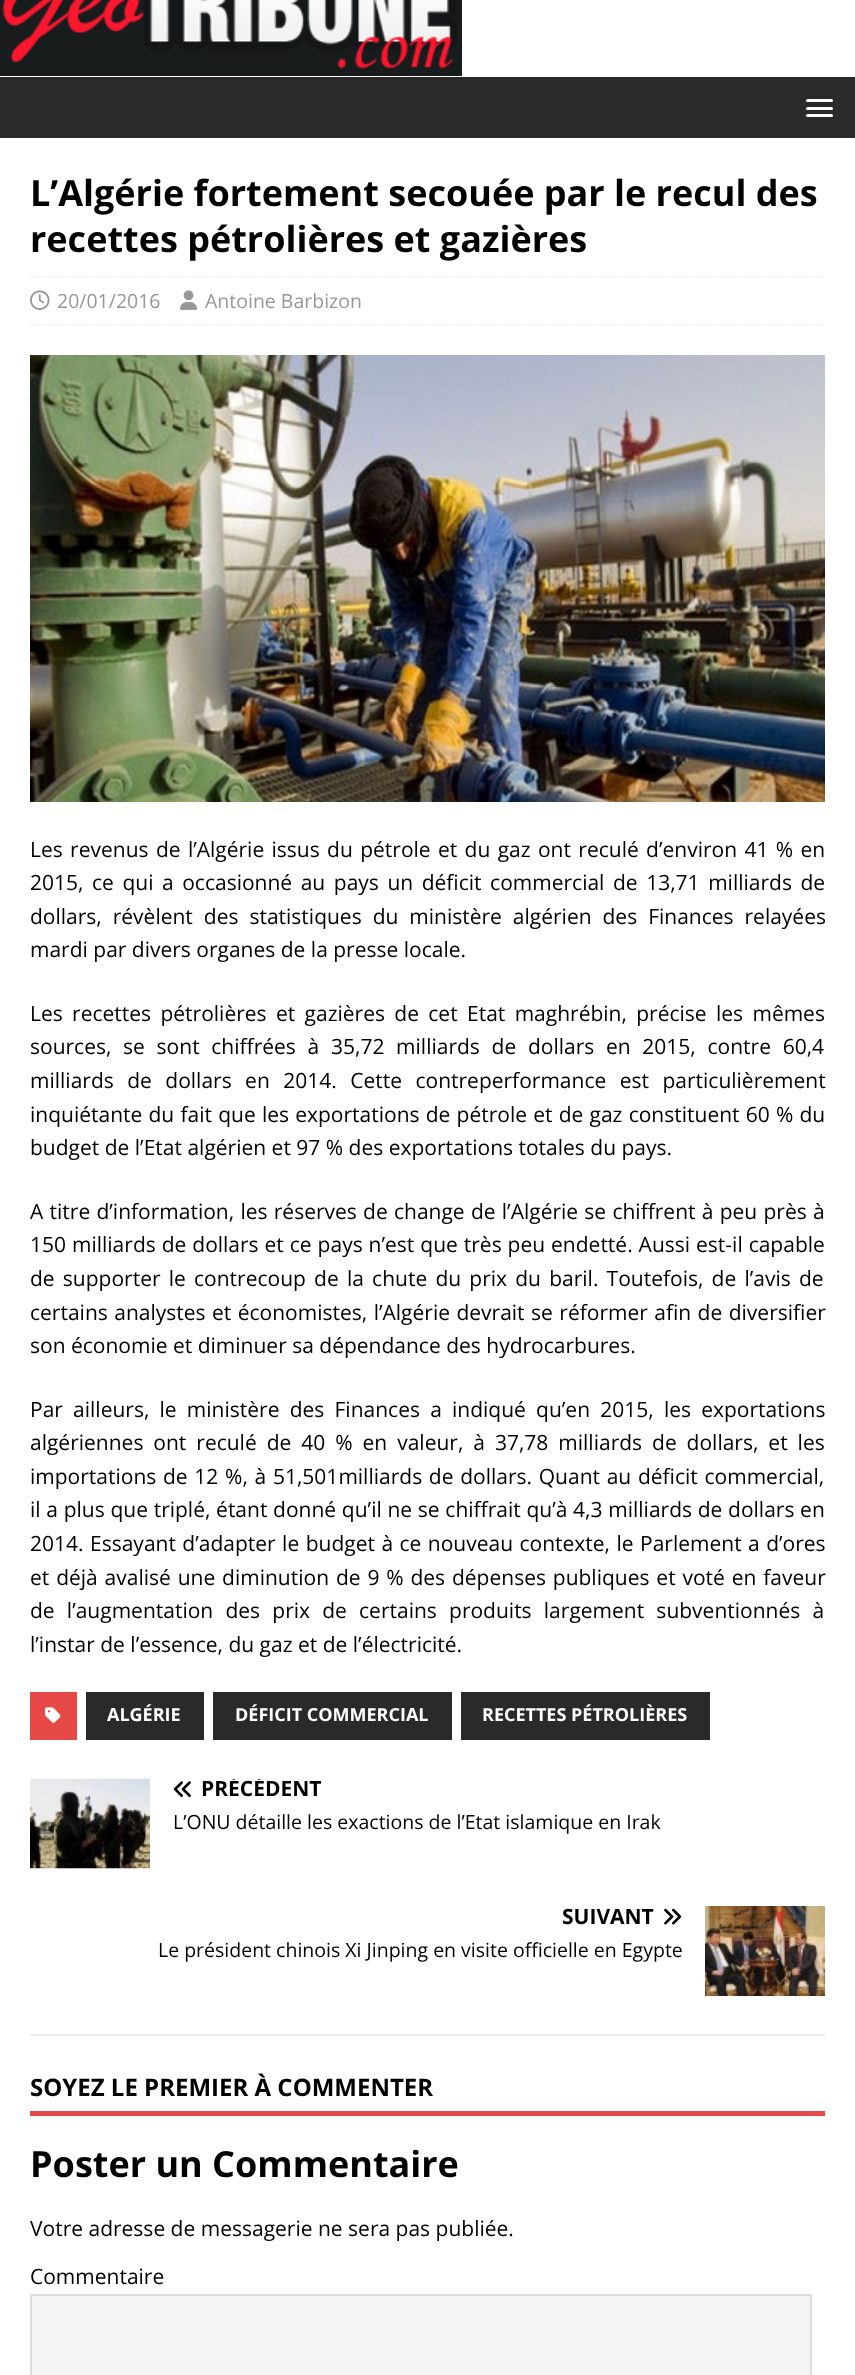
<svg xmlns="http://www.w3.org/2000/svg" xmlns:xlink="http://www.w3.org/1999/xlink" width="855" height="2375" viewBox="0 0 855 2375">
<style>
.cls-1{font:bold 36px Open Sans;fill:#000000}
.cls-2{font:19.5px Open Sans;fill:#979797}
.cls-3{font:21px Open Sans;fill:#000000}
.cls-4{font:bold 18px Open Sans;fill:#ffffff}
.cls-5{font:bold 21px Open Sans;fill:#000000}
.cls-6{font:19.5px Open Sans;fill:#000000}
.cls-7{font:bold 24px Open Sans;fill:#000000}
</style>
<defs>
<clipPath id="clip1"><rect x="173" y="1779" width="652" height="21"/></clipPath>
</defs>
<rect width="100%" height="100%" fill="#ffffff"/>
<image xlink:href="image0.png" x="0" y="0" width="462" height="76"/>
<rect fill="#2a2a2a" x="0" y="77" width="855" height="61"/>
<rect fill="#ffffff" x="806" y="99" width="27" height="3" rx="1.5"/>
<rect fill="#ffffff" x="806" y="107" width="27" height="3" rx="1.5"/>
<rect fill="#ffffff" x="806" y="114" width="27" height="3" rx="1.5"/>
<path fill="none" stroke="#ebebeb" stroke-width="1.5" stroke-dasharray="1.5 1.5" d="M30 277H825"/>
<path fill="none" stroke="#ebebeb" stroke-width="1.5" stroke-dasharray="1.5 1.5" d="M30 325H825"/>
<image xlink:href="image1.png" x="30" y="290" width="20" height="20"/>
<image xlink:href="image2.png" x="180" y="290" width="17" height="20"/>
<image xlink:href="image3.png" x="30" y="355" width="795" height="447"/>
<rect fill="#e64946" x="30" y="1692" width="47" height="48"/>
<image xlink:href="image4.png" x="45" y="1707" width="16" height="16"/>
<rect fill="#2a2a2a" x="86" y="1692" width="118" height="48"/>
<rect fill="#2a2a2a" x="213" y="1692" width="239" height="48"/>
<rect fill="#2a2a2a" x="461" y="1692" width="249" height="48"/>
<rect fill="#ebebeb" x="30" y="2034" width="795" height="2"/>
<image xlink:href="image5.png" x="30" y="1778" width="120" height="91"/>
<image xlink:href="image6.png" x="173" y="1781" width="18" height="16"/>
<image xlink:href="image7.png" x="664" y="1908" width="18" height="17"/>
<image xlink:href="image8.png" x="705" y="1906" width="120" height="90"/>
<rect fill="#e64946" x="30" y="2111" width="795" height="5"/>
<rect fill="#f5f5f5" stroke="#dddddd" stroke-width="2" x="31" y="2295" width="780" height="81"/>
<text class="cls-1"><tspan x="30" y="206">L’Algérie fortement secouée par le recul des</tspan><tspan x="30" y="252">recettes pétrolières et gazières</tspan></text>
<text class="cls-2" x="57" y="308">20/01/2016</text>
<text class="cls-2" x="205" y="308">Antoine Barbizon</text>
<text class="cls-3"><tspan x="30" y="857" word-spacing="1.9">Les revenus de l’Algérie issus du pétrole et du gaz ont reculé d’environ 41 % en</tspan><tspan x="30" y="890" word-spacing="3.1">2015, ce qui a occasionné au pays un déficit commercial de 13,71 milliards de</tspan><tspan x="30" y="924" word-spacing="5.5">dollars, révèlent des statistiques du ministère algérien des Finances relayées</tspan><tspan x="30" y="957">mardi par divers organes de la presse locale.</tspan></text>
<text class="cls-3"><tspan x="30" y="1021" word-spacing="3.9">Les recettes pétrolières et gazières de cet Etat maghrébin, précise les mêmes</tspan><tspan x="30" y="1054" word-spacing="6.25">sources, se sont chiffrées à 35,72 milliards de dollars en 2015, contre 60,4</tspan><tspan x="30" y="1088" word-spacing="8">milliards de dollars en 2014. Cette contreperformance est particulièrement</tspan><tspan x="30" y="1122" word-spacing="0.75">inquiétante du fait que les exportations de pétrole et de gaz constituent 60 % du</tspan><tspan x="30" y="1155">budget de l’Etat algérien et 97 % des exportations totales du pays.</tspan></text>
<text class="cls-3"><tspan x="30" y="1219" word-spacing="0.8">A titre d’information, les réserves de change de l’Algérie se chiffrent à peu près à</tspan><tspan x="30" y="1252" word-spacing="0.5">150 milliards de dollars et ce pays n’est que très peu endetté. Aussi est-il capable</tspan><tspan x="30" y="1286" word-spacing="2.75">de supporter le contrecoup de la chute du prix du baril. Toutefois, de l’avis de</tspan><tspan x="30" y="1320" word-spacing="1">certains analystes et économistes, l’Algérie devrait se réformer afin de diversifier</tspan><tspan x="30" y="1353">son économie et diminuer sa dépendance des hydrocarbures.</tspan></text>
<text class="cls-3"><tspan x="30" y="1417" word-spacing="4.75">Par ailleurs, le ministère des Finances a indiqué qu’en 2015, les exportations</tspan><tspan x="30" y="1450" word-spacing="4.5">algériennes ont reculé de 40 % en valeur, à 37,78 milliards de dollars, et les</tspan><tspan x="30" y="1484" word-spacing="1.25">importations de 12 %, à 51,501milliards de dollars. Quant au déficit commercial,</tspan><tspan x="30" y="1517" word-spacing="0.25">il a plus que triplé, étant donné qu’il ne se chiffrait qu’à 4,3 milliards de dollars en</tspan><tspan x="30" y="1551" word-spacing="1">2014. Essayant d’adapter le budget à ce nouveau contexte, le Parlement a d’ores</tspan><tspan x="30" y="1585" word-spacing="1.4">et déjà avalisé une diminution de 9 % des dépenses publiques et voté en faveur</tspan><tspan x="30" y="1618" word-spacing="6.75">de l’augmentation des prix de certains produits largement subventionnés à</tspan><tspan x="30" y="1652">l’instar de l’essence, du gaz et de l’électricité.</tspan></text>
<text class="cls-4" x="107" y="1721">ALGÉRIE</text>
<text class="cls-4" x="235" y="1721">DÉFICIT COMMERCIAL</text>
<text class="cls-4" x="482" y="1721">RECETTES PÉTROLIÈRES</text>
<g clip-path="url(#clip1)">
<text class="cls-5" x="201" y="1796">PRÉCÉDENT</text>
</g>
<text class="cls-6" x="173" y="1829">L’ONU détaille les exactions de l’Etat islamique en Irak</text>
<text class="cls-5" x="562" y="1924">SUIVANT</text>
<text class="cls-6" x="158" y="1957">Le président chinois Xi Jinping en visite officielle en Egypte</text>
<text class="cls-7" x="30" y="2096">SOYEZ LE PREMIER À COMMENTER</text>
<text class="cls-1" x="30" y="2177">Poster un Commentaire</text>
<text class="cls-3" x="30" y="2236">Votre adresse de messagerie ne sera pas publiée.</text>
<text class="cls-3" x="30" y="2284">Commentaire</text>
</svg>
